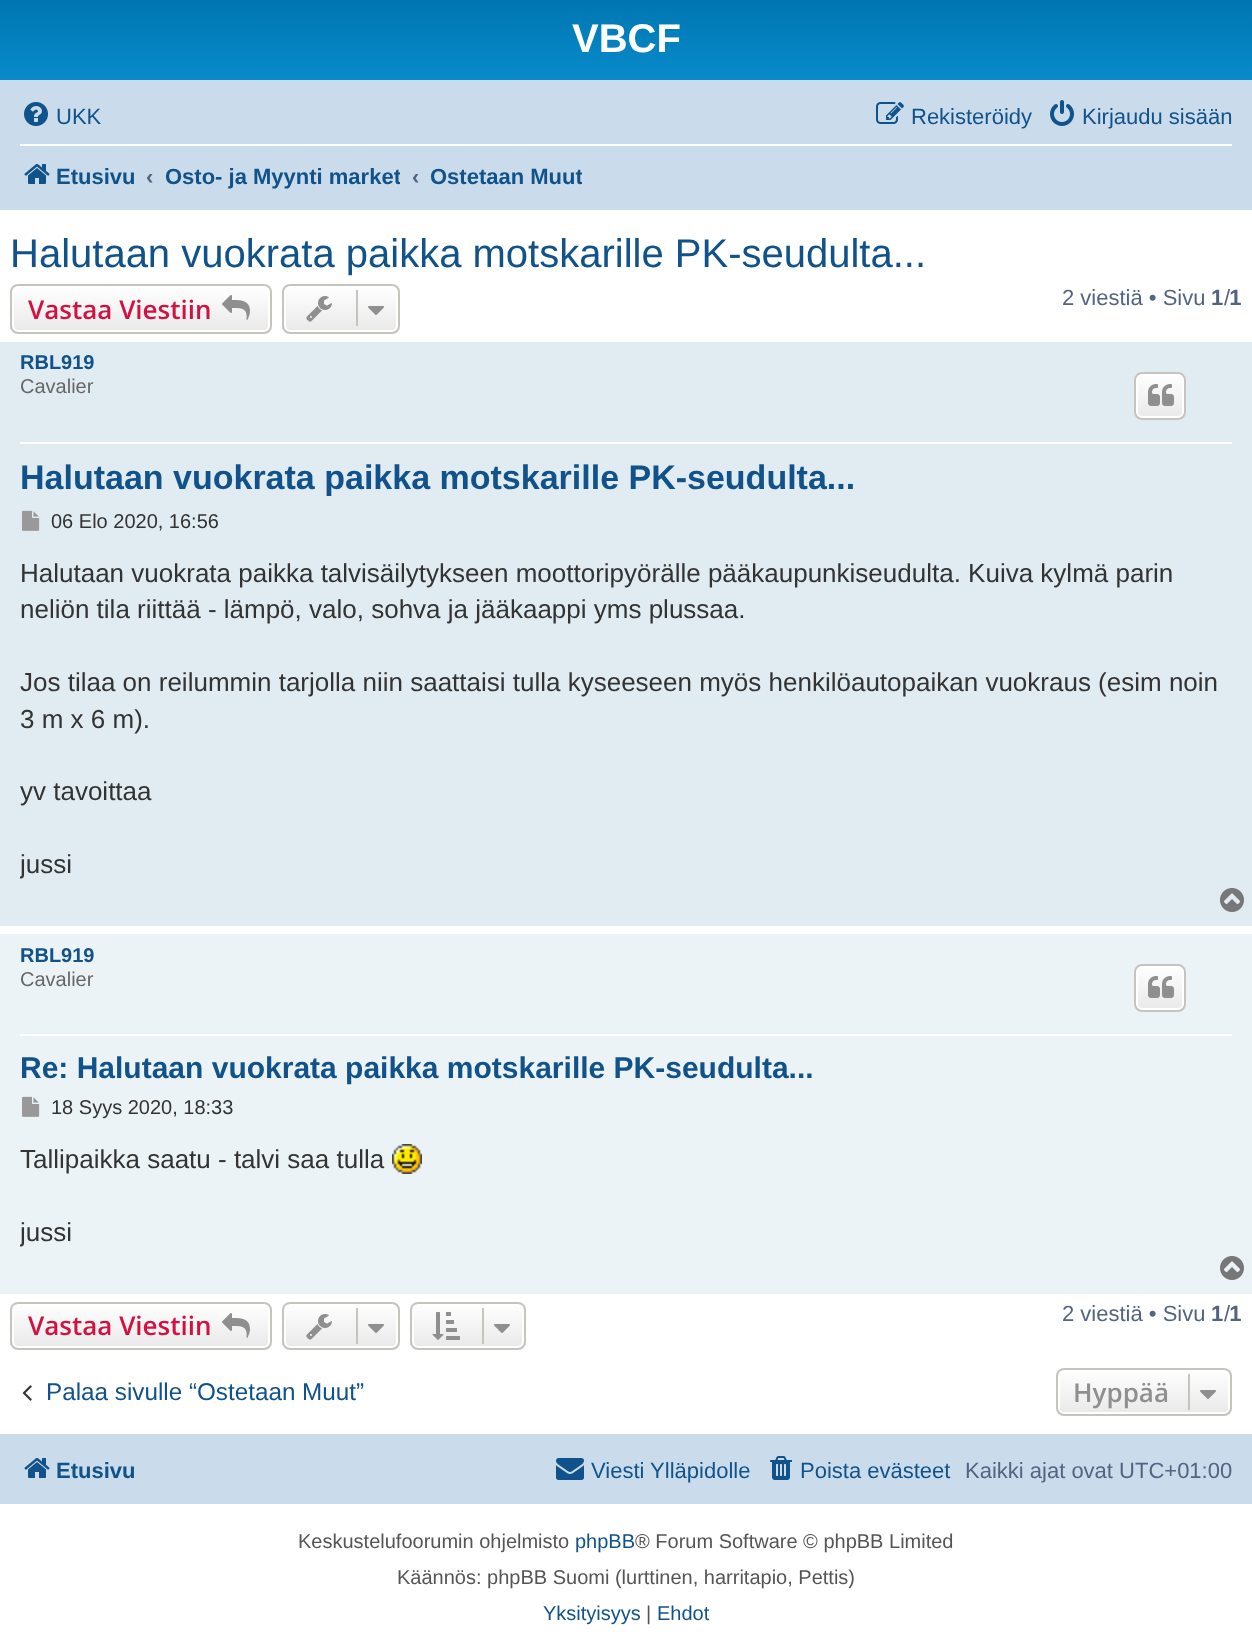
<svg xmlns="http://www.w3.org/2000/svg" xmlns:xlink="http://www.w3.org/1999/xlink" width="1252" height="1646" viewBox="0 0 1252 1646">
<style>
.cls-1{font:bold 40px Liberation Sans;fill:#ffffff}
.cls-2{font:22px Liberation Sans;fill:#105289}
.cls-3{font:bold 22px Liberation Sans;fill:#105289}
.cls-4{font:bold 22px Liberation Sans;fill:#536482}
.cls-5{font:40px Liberation Sans;fill:#105289}
.cls-6{font:600 26px Open Sans;fill:#d31141}
.cls-7{font:22px Liberation Sans;fill:#536482}
.cls-8{font:bold 20px Liberation Sans;fill:#105289}
.cls-9{font:20px Liberation Sans;fill:#666666}
.cls-10{font:bold 34px Liberation Sans;fill:#105289}
.cls-11{font:20px Liberation Sans;fill:#333333}
.cls-12{font:26px Liberation Sans;fill:#333333}
.cls-13{font:bold 30px Liberation Sans;fill:#105289}
.cls-14{font:24.25px Liberation Sans;fill:#105289}
.cls-15{font:600 26px Open Sans;fill:#8f8f8f}
.cls-16{font:20px Liberation Sans;fill:#555555}
.cls-17{font:20px Liberation Sans;fill:#105289}
</style>
<defs>
<linearGradient id="g1" gradientUnits="userSpaceOnUse" x1="626" y1="-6" x2="626" y2="178"><stop offset="0" stop-color="#6aceff"/><stop offset="0.02" stop-color="#0076b1"/><stop offset="1" stop-color="#12a3eb"/></linearGradient>
<clipPath id="clip1"><rect x="10" y="284" width="262" height="50" rx="8"/></clipPath>
<linearGradient id="g2" gradientUnits="userSpaceOnUse" x1="141" y1="286" x2="141" y2="332"><stop offset="0" stop-color="#ffffff"/><stop offset="1" stop-color="#e9e9e9"/></linearGradient>
<clipPath id="clip2"><rect x="282" y="284" width="118" height="50" rx="8"/></clipPath>
<linearGradient id="g3" gradientUnits="userSpaceOnUse" x1="341" y1="286" x2="341" y2="332"><stop offset="0" stop-color="#ffffff"/><stop offset="1" stop-color="#e9e9e9"/></linearGradient>
<clipPath id="clip3"><rect x="1134" y="372" width="52" height="48" rx="8"/></clipPath>
<linearGradient id="g4" gradientUnits="userSpaceOnUse" x1="1160" y1="374" x2="1160" y2="418"><stop offset="0" stop-color="#ffffff"/><stop offset="1" stop-color="#e9e9e9"/></linearGradient>
<clipPath id="clip4"><rect x="1134" y="964" width="52" height="48" rx="8"/></clipPath>
<linearGradient id="g5" gradientUnits="userSpaceOnUse" x1="1160" y1="966" x2="1160" y2="1010"><stop offset="0" stop-color="#ffffff"/><stop offset="1" stop-color="#e9e9e9"/></linearGradient>
<clipPath id="clip5"><rect x="10" y="1302" width="262" height="48" rx="8"/></clipPath>
<linearGradient id="g6" gradientUnits="userSpaceOnUse" x1="141" y1="1304" x2="141" y2="1348"><stop offset="0" stop-color="#ffffff"/><stop offset="1" stop-color="#e9e9e9"/></linearGradient>
<clipPath id="clip6"><rect x="282" y="1302" width="118" height="48" rx="8"/></clipPath>
<linearGradient id="g7" gradientUnits="userSpaceOnUse" x1="341" y1="1304" x2="341" y2="1348"><stop offset="0" stop-color="#ffffff"/><stop offset="1" stop-color="#e9e9e9"/></linearGradient>
<clipPath id="clip7"><rect x="410" y="1302" width="116" height="48" rx="8"/></clipPath>
<linearGradient id="g8" gradientUnits="userSpaceOnUse" x1="468" y1="1304" x2="468" y2="1348"><stop offset="0" stop-color="#ffffff"/><stop offset="1" stop-color="#e9e9e9"/></linearGradient>
<clipPath id="clip8"><rect x="1056" y="1368" width="176" height="48" rx="8"/></clipPath>
<linearGradient id="g9" gradientUnits="userSpaceOnUse" x1="1144" y1="1370" x2="1144" y2="1414"><stop offset="0" stop-color="#ffffff"/><stop offset="1" stop-color="#e9e9e9"/></linearGradient>
<clipPath id="clip9"><rect x="164" y="152" width="236" height="48"/></clipPath>
<clipPath id="clip10"><rect x="430" y="152" width="152" height="48"/></clipPath>
<clipPath id="clip11"><rect x="20" y="556" width="1212" height="330"/></clipPath>
<clipPath id="clip12"><rect x="20" y="1142" width="1212" height="112"/></clipPath>
</defs>
<rect width="100%" height="100%" fill="#ffffff"/>
<rect fill="url(#g1)" x="0" y="0" width="1252" height="80"/>
<rect fill="#cadceb" x="0" y="80" width="1252" height="130"/>
<image xlink:href="image0.png" x="24" y="102" width="24" height="24"/>
<image xlink:href="image1.png" x="876" y="102" width="28" height="22"/>
<image xlink:href="image2.png" x="1050" y="100" width="24" height="26"/>
<rect fill="#ffffff" x="20" y="144" width="1212" height="2"/>
<image xlink:href="image3.png" x="24" y="164" width="26" height="20"/>
<g clip-path="url(#clip1)">
<rect fill="url(#g2)" x="10" y="286" width="262" height="46"/>
</g>
<rect fill="none" stroke="#ffffff" stroke-width="2" x="13" y="287" width="256" height="44" rx="5"/>
<rect fill="none" stroke="#c7c3bf" stroke-width="2" x="11" y="285" width="260" height="48" rx="7"/>
<image xlink:href="image4.png" x="222" y="295" width="28" height="25"/>
<g clip-path="url(#clip2)">
<rect fill="url(#g3)" x="282" y="286" width="118" height="46"/>
</g>
<rect fill="none" stroke="#ffffff" stroke-width="2" x="285" y="287" width="112" height="44" rx="5"/>
<rect fill="none" stroke="#c7c3bf" stroke-width="2" x="283" y="285" width="116" height="48" rx="7"/>
<image xlink:href="image5.png" x="306" y="296" width="26" height="26"/>
<rect fill="#c7c3bf" x="356" y="290" width="2" height="36"/>
<image xlink:href="image6.png" x="368" y="306" width="16" height="9"/>
<rect fill="#e1ebf2" x="0" y="342" width="1252" height="584"/>
<rect fill="#ffffff" x="20" y="442" width="1212" height="2"/>
<g clip-path="url(#clip3)">
<rect fill="url(#g4)" x="1134" y="374" width="52" height="44"/>
</g>
<rect fill="none" stroke="#ffffff" stroke-width="2" x="1137" y="375" width="46" height="42" rx="5"/>
<rect fill="none" stroke="#c7c3bf" stroke-width="2" x="1135" y="373" width="50" height="46" rx="7"/>
<image xlink:href="image7.png" x="1148" y="384" width="26" height="22"/>
<image xlink:href="image8.png" x="22" y="510" width="18" height="21"/>
<image xlink:href="image9.png" x="1220" y="888" width="24" height="24"/>
<rect fill="#ecf3f7" x="0" y="934" width="1252" height="360"/>
<rect fill="#ffffff" x="20" y="1034" width="1212" height="2"/>
<g clip-path="url(#clip4)">
<rect fill="url(#g5)" x="1134" y="966" width="52" height="44"/>
</g>
<rect fill="none" stroke="#ffffff" stroke-width="2" x="1137" y="967" width="46" height="42" rx="5"/>
<rect fill="none" stroke="#c7c3bf" stroke-width="2" x="1135" y="965" width="50" height="46" rx="7"/>
<image xlink:href="image7.png" x="1148" y="976" width="26" height="22"/>
<image xlink:href="image10.png" x="22" y="1096" width="18" height="21"/>
<image xlink:href="image11.png" x="392" y="1144" width="30" height="30"/>
<image xlink:href="image12.png" x="1220" y="1256" width="24" height="24"/>
<g clip-path="url(#clip5)">
<rect fill="url(#g6)" x="10" y="1304" width="262" height="44"/>
</g>
<rect fill="none" stroke="#ffffff" stroke-width="2" x="13" y="1305" width="256" height="42" rx="5"/>
<rect fill="none" stroke="#c7c3bf" stroke-width="2" x="11" y="1303" width="260" height="46" rx="7"/>
<image xlink:href="image13.png" x="222" y="1313" width="28" height="25"/>
<g clip-path="url(#clip6)">
<rect fill="url(#g7)" x="282" y="1304" width="118" height="44"/>
</g>
<rect fill="none" stroke="#ffffff" stroke-width="2" x="285" y="1305" width="112" height="42" rx="5"/>
<rect fill="none" stroke="#c7c3bf" stroke-width="2" x="283" y="1303" width="116" height="46" rx="7"/>
<image xlink:href="image14.png" x="306" y="1314" width="26" height="26"/>
<rect fill="#c7c3bf" x="356" y="1308" width="2" height="36"/>
<image xlink:href="image15.png" x="368" y="1324" width="16" height="9"/>
<g clip-path="url(#clip7)">
<rect fill="url(#g8)" x="410" y="1304" width="116" height="44"/>
</g>
<rect fill="none" stroke="#ffffff" stroke-width="2" x="413" y="1305" width="110" height="42" rx="5"/>
<rect fill="none" stroke="#c7c3bf" stroke-width="2" x="411" y="1303" width="114" height="46" rx="7"/>
<image xlink:href="image16.png" x="432" y="1312" width="28" height="28"/>
<rect fill="#c7c3bf" x="482" y="1308" width="2" height="36"/>
<image xlink:href="image15.png" x="494" y="1324" width="16" height="9"/>
<image xlink:href="image17.png" x="22" y="1385" width="10" height="16"/>
<g clip-path="url(#clip8)">
<rect fill="url(#g9)" x="1056" y="1370" width="176" height="44"/>
</g>
<rect fill="none" stroke="#ffffff" stroke-width="2" x="1059" y="1371" width="170" height="42" rx="5"/>
<rect fill="none" stroke="#c7c3bf" stroke-width="2" x="1057" y="1369" width="174" height="46" rx="7"/>
<rect fill="#c7c3bf" x="1188" y="1374" width="2" height="36"/>
<image xlink:href="image15.png" x="1200" y="1390" width="16" height="9"/>
<rect fill="#cadceb" x="0" y="1434" width="1252" height="70"/>
<image xlink:href="image3.png" x="24" y="1458" width="26" height="20"/>
<image xlink:href="image18.png" x="556" y="1458" width="28" height="22"/>
<image xlink:href="image19.png" x="770" y="1456" width="22" height="24"/>
<text class="cls-1" x="572" y="52">VBCF</text>
<text class="cls-2" x="56" y="124">UKK</text>
<text class="cls-2" x="911" y="124">Rekisteröidy</text>
<text class="cls-2" x="1082" y="124">Kirjaudu sisään</text>
<text class="cls-3" x="56" y="184">Etusivu</text>
<text class="cls-4" x="146" y="184">‹</text>
<g clip-path="url(#clip9)">
<text class="cls-3" x="165" y="184">Osto- ja Myynti market</text>
</g>
<text class="cls-4" x="412" y="184">‹</text>
<g clip-path="url(#clip10)">
<text class="cls-3" x="430" y="184">Ostetaan Muut</text>
</g>
<text class="cls-5" x="10" y="267">Halutaan vuokrata paikka motskarille PK-seudulta...</text>
<text class="cls-6" x="28" y="319">Vastaa Viestiin</text>
<text class="cls-7" x="1062" y="305">2 viestiä • Sivu</text>
<text class="cls-4" x="1211" y="305">1 1</text>
<text class="cls-7" x="1224" y="305">/</text>
<text class="cls-8" x="20" y="369">RBL919</text>
<text class="cls-9" x="20" y="393">Cavalier</text>
<text class="cls-10" x="20" y="489">Halutaan vuokrata paikka motskarille PK-seudulta...</text>
<text class="cls-11" x="51" y="528">06 Elo 2020, 16:56</text>
<text class="cls-12"><tspan x="20" y="582">Halutaan vuokrata paikka talvisäilytykseen moottoripyörälle pääkaupunkiseudulta. Kuiva kylmä parin</tspan><tspan x="20" y="618">neliön tila riittää - lämpö, valo, sohva ja jääkaappi yms plussaa.</tspan></text>
<text class="cls-12"><tspan x="20" y="691">Jos tilaa on reilummin tarjolla niin saattaisi tulla kyseeseen myös henkilöautopaikan vuokraus (esim noin</tspan><tspan x="20" y="728">3 m x 6 m).</tspan></text>
<text class="cls-12" x="20" y="800">yv tavoittaa</text>
<g clip-path="url(#clip11)">
<text class="cls-12" x="20" y="873">jussi</text>
</g>
<text class="cls-8" x="20" y="962">RBL919</text>
<text class="cls-9" x="20" y="986">Cavalier</text>
<text class="cls-13" x="20" y="1078">Re: Halutaan vuokrata paikka motskarille PK-seudulta...</text>
<text class="cls-11" x="51" y="1114">18 Syys 2020, 18:33</text>
<text class="cls-12" x="20" y="1168">Tallipaikka saatu - talvi saa tulla</text>
<g clip-path="url(#clip12)">
<text class="cls-12" x="20" y="1241">jussi</text>
</g>
<text class="cls-6" x="28" y="1335">Vastaa Viestiin</text>
<text class="cls-7" x="1062" y="1321">2 viestiä • Sivu</text>
<text class="cls-4" x="1211" y="1321">1 1</text>
<text class="cls-7" x="1224" y="1321">/</text>
<text class="cls-14" x="46" y="1400">Palaa sivulle “Ostetaan Muut”</text>
<text class="cls-15" x="1073" y="1402">Hyppää</text>
<text class="cls-3" x="56" y="1478">Etusivu</text>
<text class="cls-2" x="591" y="1478">Viesti Ylläpidolle</text>
<text class="cls-2" x="800" y="1478">Poista evästeet</text>
<text class="cls-7" x="965" y="1478">Kaikki ajat ovat UTC+01:00</text>
<text class="cls-16" x="298" y="1548">Keskustelufoorumin ohjelmisto</text>
<text class="cls-17" x="575" y="1548">phpBB</text>
<text class="cls-16" x="635" y="1548">® Forum Software © phpBB Limited</text>
<text class="cls-16" x="397" y="1584">Käännös: phpBB Suomi (lurttinen, harritapio, Pettis)</text>
<text class="cls-17" x="543" y="1620">Yksityisyys</text>
<text class="cls-16" x="646" y="1620">|</text>
<text class="cls-17" x="657" y="1620">Ehdot</text>
</svg>
